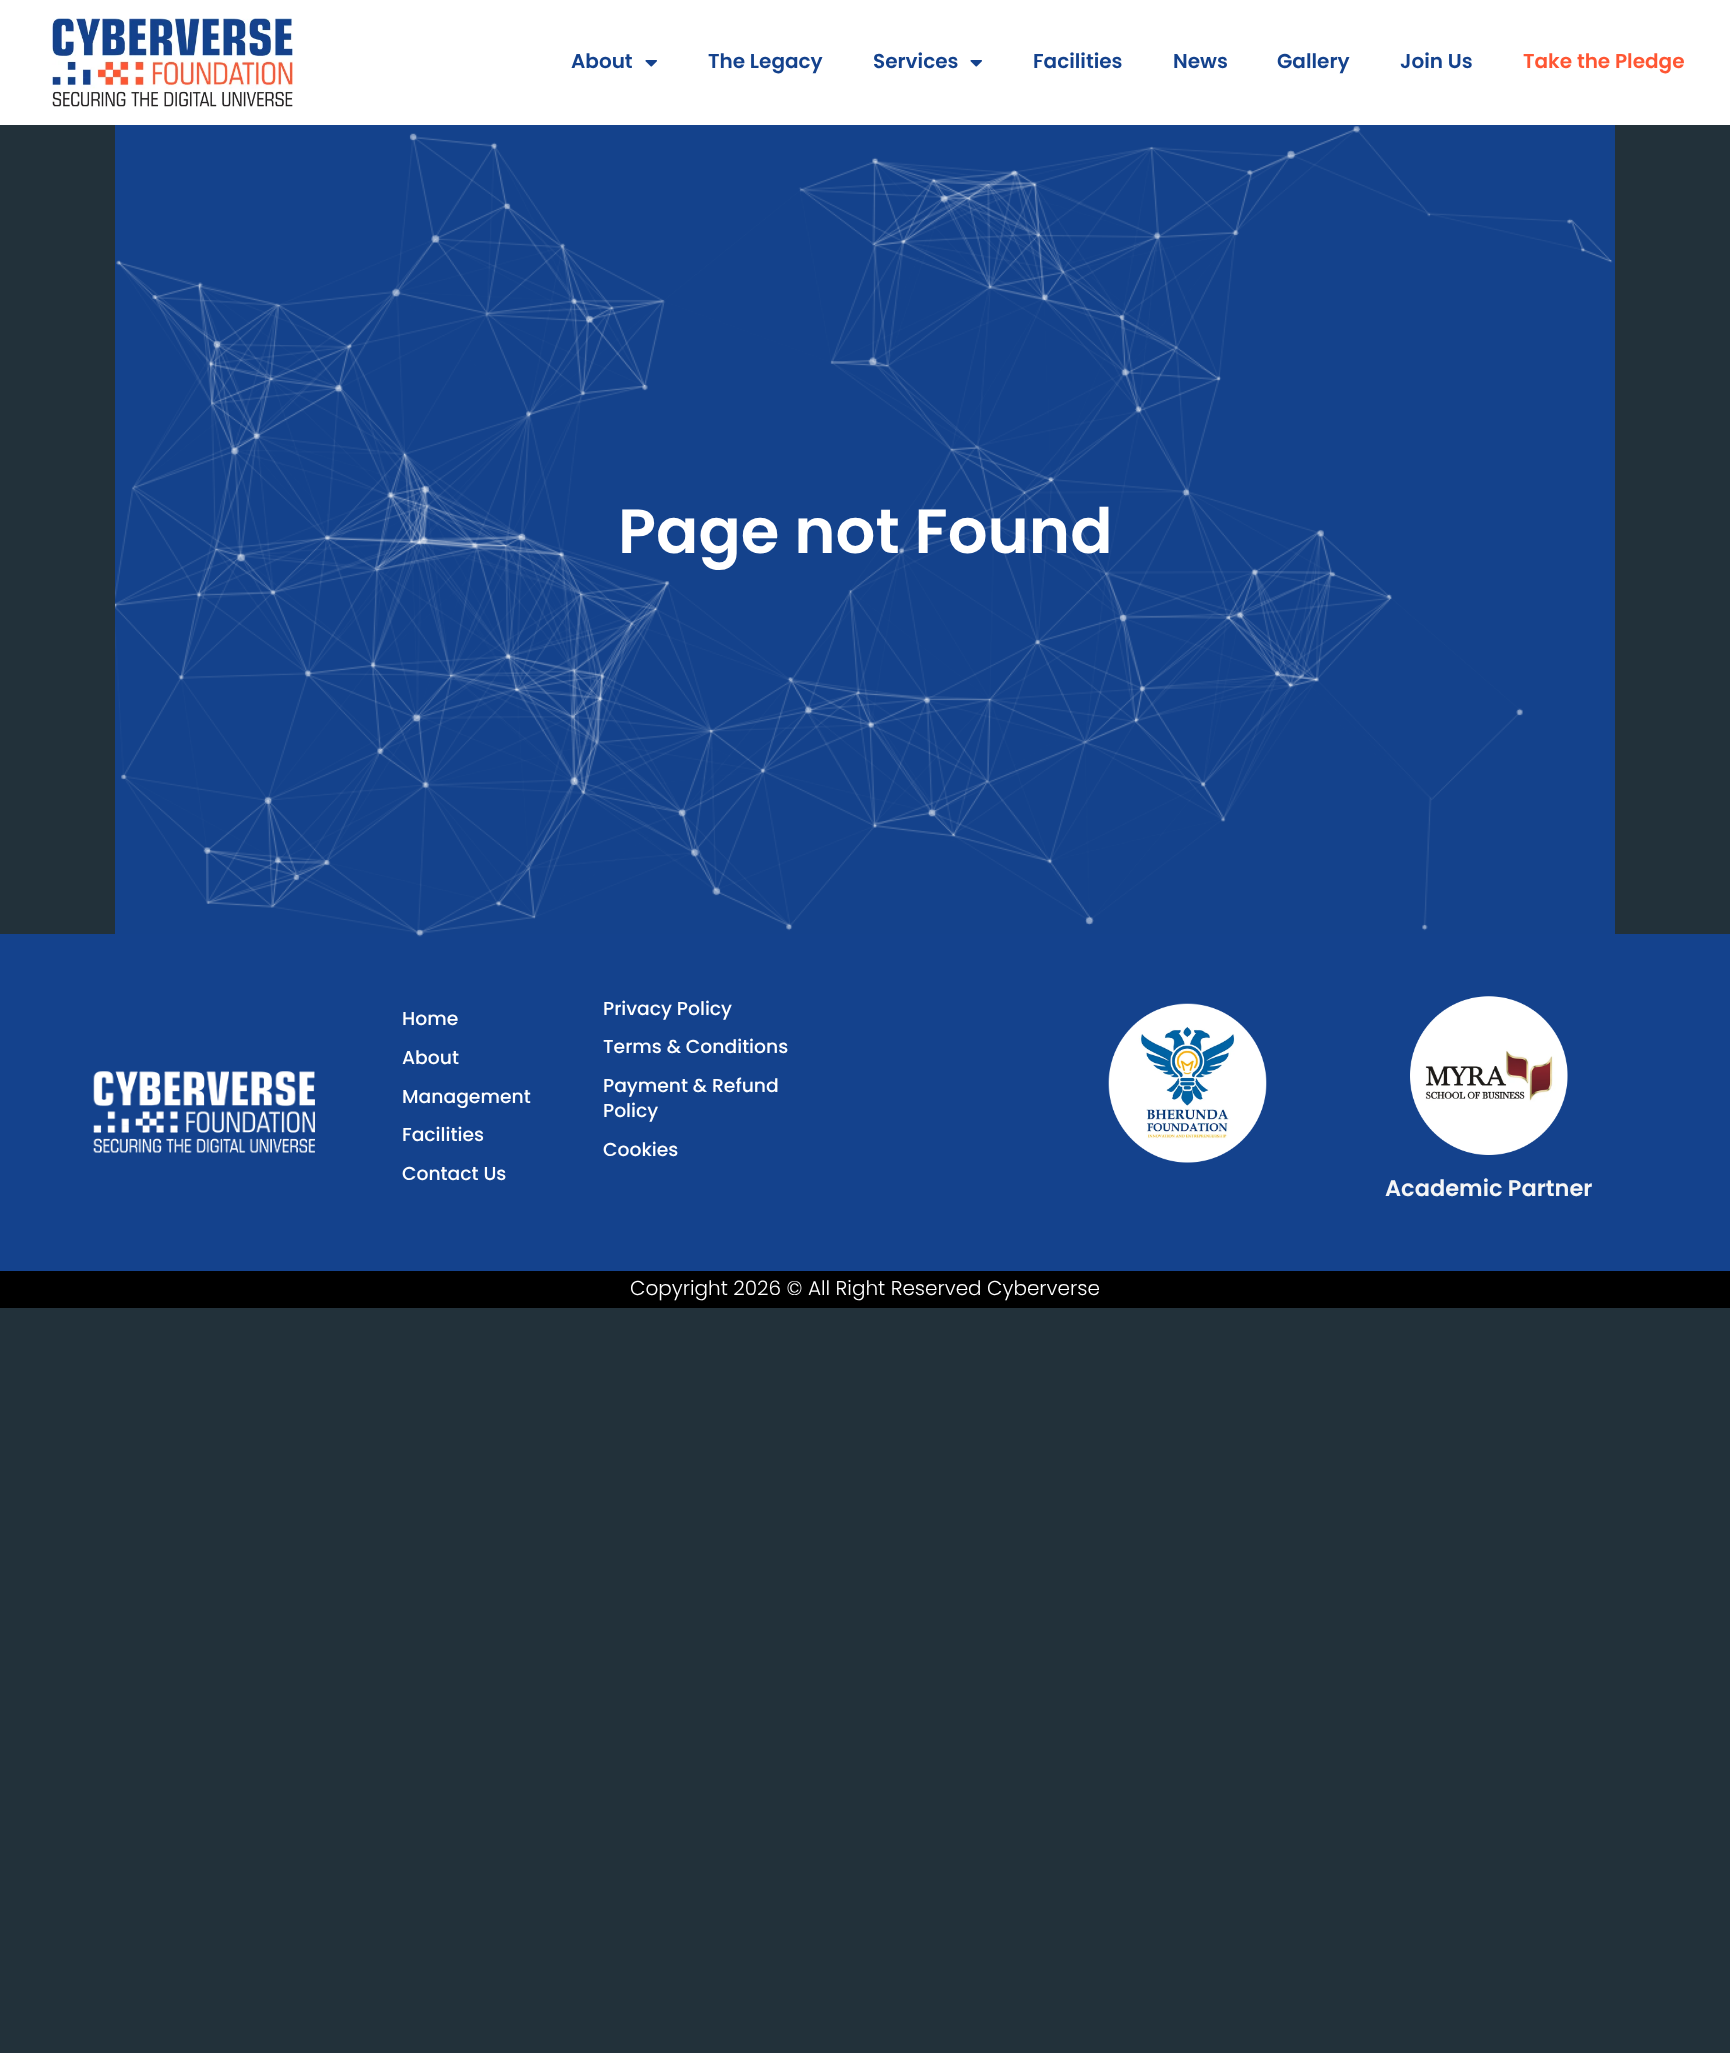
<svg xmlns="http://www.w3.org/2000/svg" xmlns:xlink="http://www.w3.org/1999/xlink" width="1730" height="2053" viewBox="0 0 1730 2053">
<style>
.cls-1{font:600 20px Poppins;fill:#14428d}
.cls-2{font:600 20px Poppins;fill:#ff5633}
.cls-3{font:600 62.5px Poppins;fill:#ffffff}
.cls-4{font:500 18.75px Poppins;fill:#ffffff}
.cls-5{font:600 22.5px Poppins;fill:#f6f6f6}
.cls-6{font:300 20px Poppins;fill:#ffffff}
</style>
<rect width="100%" height="100%" fill="#22313a"/>
<rect fill="#ffffff" x="0" y="0" width="1730" height="125"/>
<image xlink:href="image0.png" x="52" y="18" width="241" height="89"/>
<image xlink:href="image1.png" x="645" y="60" width="12" height="7"/>
<image xlink:href="image1.png" x="970" y="60" width="12" height="7"/>
<rect fill="#14428c" x="115" y="125" width="1500" height="809"/>
<rect fill="#14428d" x="0" y="934" width="1730" height="337"/>
<image xlink:href="image2.png" x="115" y="126" width="1498" height="811"/>
<image xlink:href="image3.png" x="93" y="1071" width="222" height="82"/>
<image xlink:href="image4.png" x="1108" y="1003" width="159" height="160"/>
<image xlink:href="image5.png" x="1410" y="996" width="158" height="159"/>
<rect fill="#000000" x="0" y="1271" width="1730" height="37"/>
<text class="cls-1" x="571" y="68">About</text>
<text class="cls-1" x="708" y="68">The Legacy</text>
<text class="cls-1" x="873" y="68">Services</text>
<text class="cls-1" x="1033" y="68">Facilities</text>
<text class="cls-1" x="1173" y="68">News</text>
<text class="cls-1" x="1277" y="68">Gallery</text>
<text class="cls-1" x="1400" y="68">Join Us</text>
<text class="cls-2" x="1523" y="68">Take the Pledge</text>
<text class="cls-3" x="618" y="553">Page not Found</text>
<text class="cls-4" x="402" y="1025">Home</text>
<text class="cls-4" x="402" y="1064">About</text>
<text class="cls-4" x="402" y="1103">Management</text>
<text class="cls-4" x="402" y="1141">Facilities</text>
<text class="cls-4" x="402" y="1180">Contact Us</text>
<text class="cls-4" x="603" y="1015">Privacy Policy</text>
<text class="cls-4" x="603" y="1053">Terms &amp; Conditions</text>
<text class="cls-4"><tspan x="603" y="1092">Payment &amp; Refund</tspan><tspan x="603" y="1117">Policy</tspan></text>
<text class="cls-4" x="603" y="1156">Cookies</text>
<text class="cls-5" x="1385" y="1196">Academic Partner</text>
<text class="cls-6" x="630" y="1295">Copyright 2026 © All Right Reserved Cyberverse</text>
</svg>
